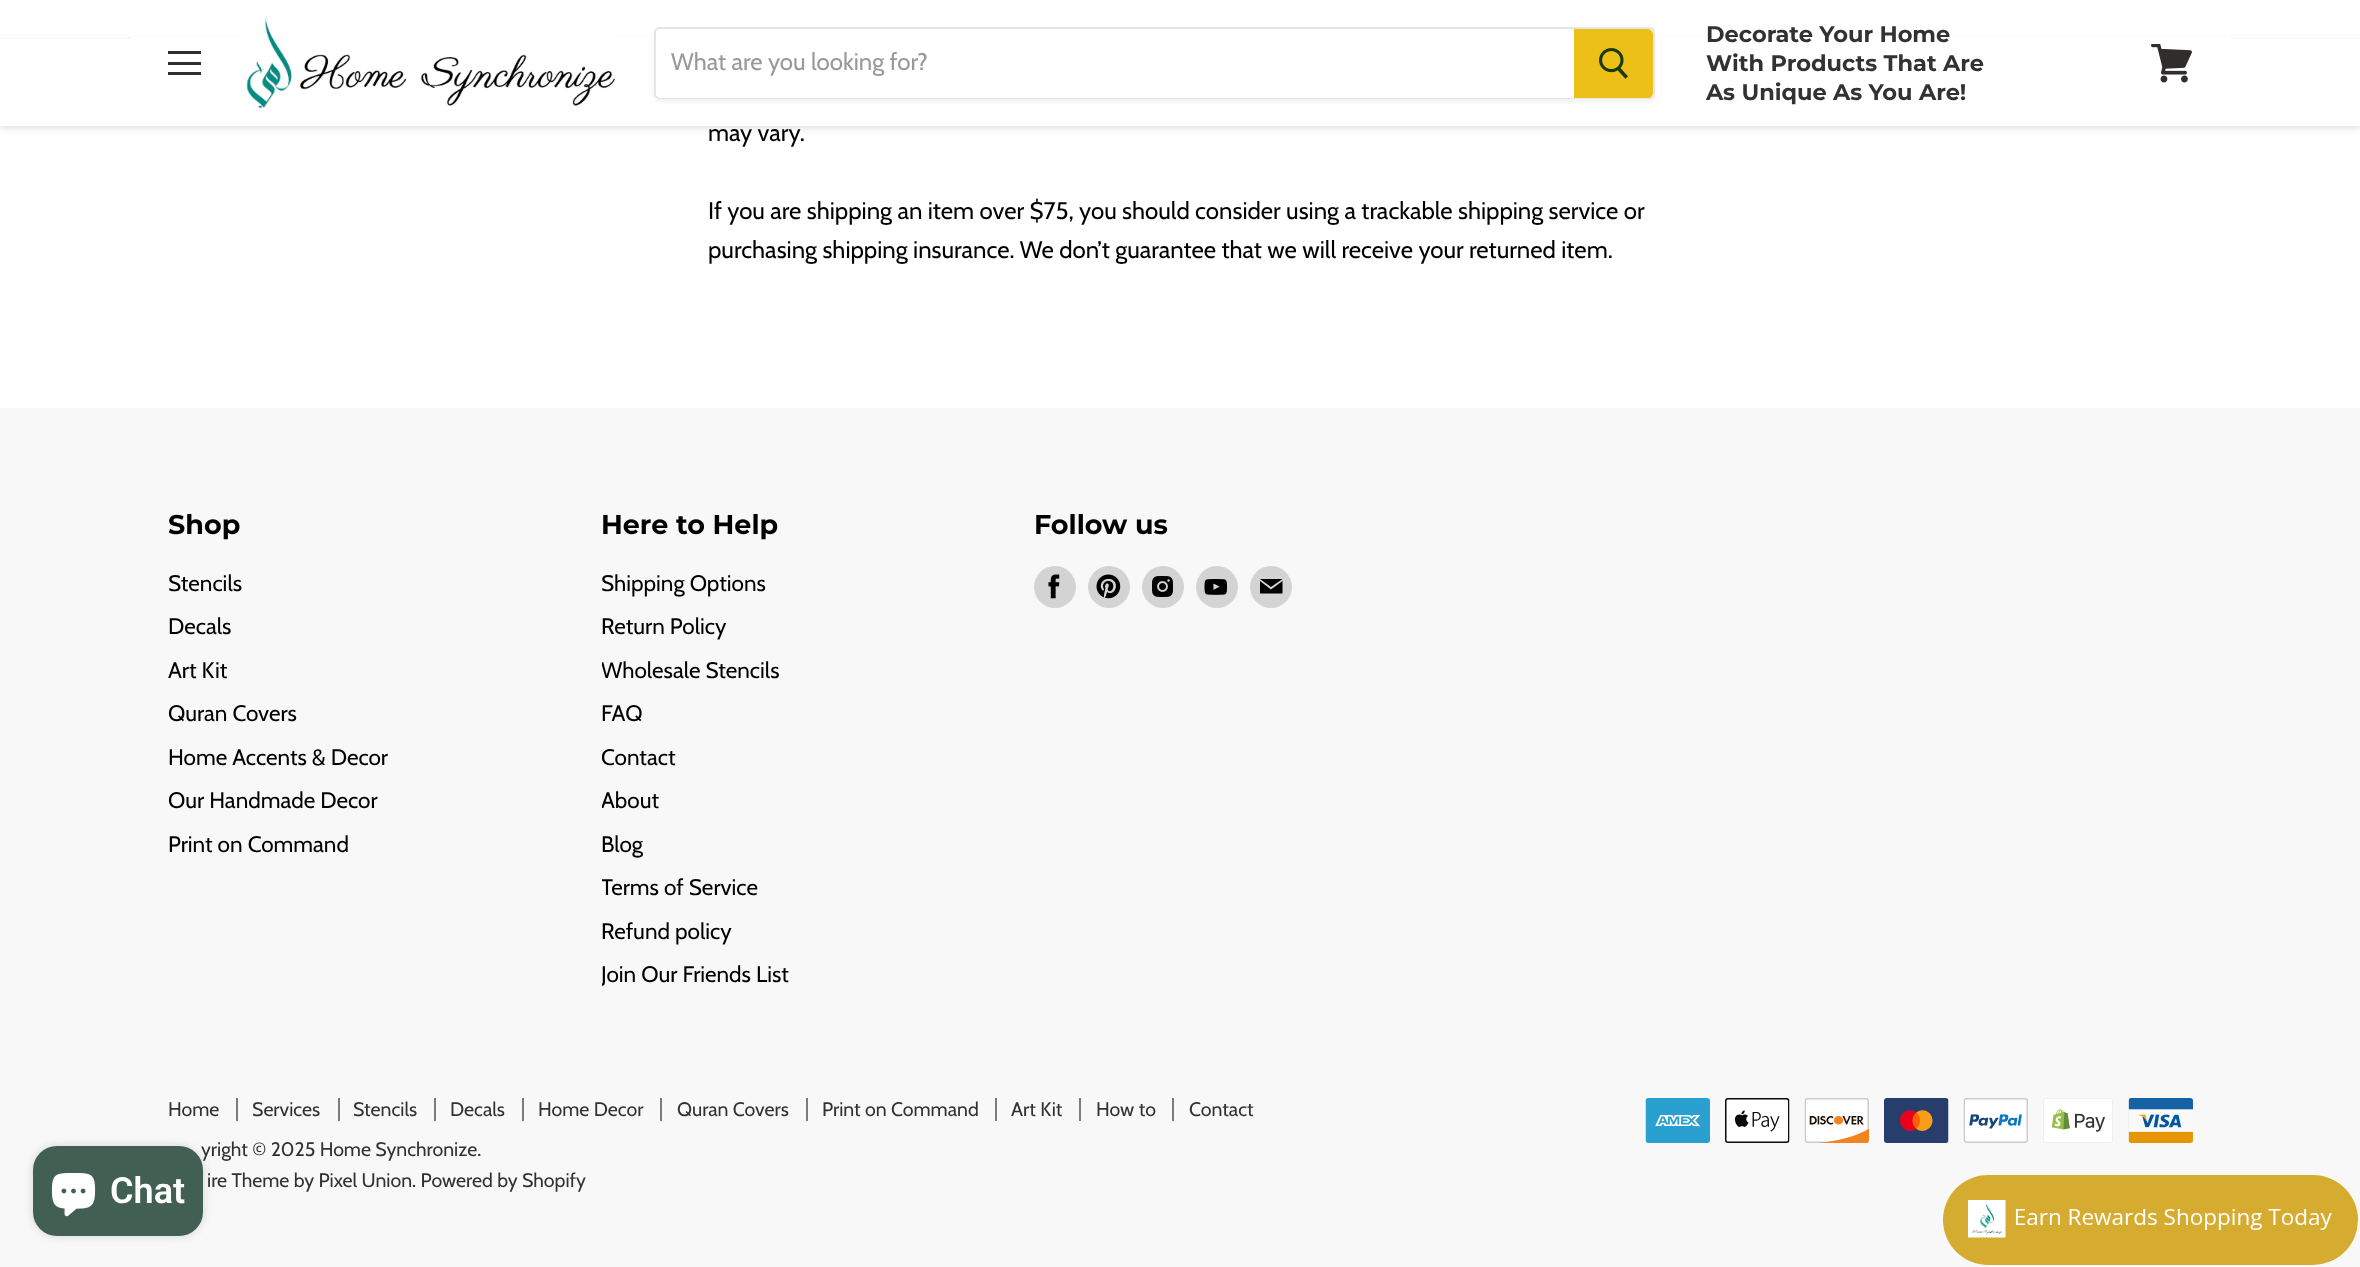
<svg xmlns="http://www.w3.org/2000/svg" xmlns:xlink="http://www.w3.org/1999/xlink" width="2360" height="1267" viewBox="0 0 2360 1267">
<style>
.cls-1{font:24px Cabin;fill:#999999}
.cls-2{font:bold 22.5px Montserrat;fill:#323232}
.cls-3{font:24px Cabin;fill:#000000}
.cls-4{font:bold 27px Montserrat;fill:#000000}
.cls-5{font:22.5px Cabin;fill:#000000}
.cls-6{font:19.5px Cabin;fill:#323232}
.cls-7{font:600 36px Roboto;fill:#ffffff}
</style>
<defs>
<clipPath id="clip1"><path d="M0 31H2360V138H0ZM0 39H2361V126H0Z" clip-rule="evenodd"/></clipPath>
<clipPath id="clip2"><path d="M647 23H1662V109H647ZM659 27H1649C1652.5 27 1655 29.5 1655 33V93C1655 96.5 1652.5 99 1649 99H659C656 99 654 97 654 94V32C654 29 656 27 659 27Z" clip-rule="evenodd"/></clipPath>
<clipPath id="clip3"><rect x="602" y="566" width="372" height="427"/></clipPath>
</defs>
<rect width="100%" height="100%" fill="#ffffff"/>
<g clip-path="url(#clip1)">
<rect fill="#7f7f7f" fill-opacity="0.25" filter="blur(3px)" x="0" y="41" width="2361" height="87"/>
</g>
<rect fill="#ffffff" x="131" y="37" width="2100" height="2"/>
<rect fill="#302d2d" x="168" y="51" width="33" height="3"/>
<rect fill="#302d2d" x="168" y="62" width="33" height="3"/>
<rect fill="#302d2d" x="168" y="72" width="33" height="3"/>
<image xlink:href="image0.png" x="246" y="16" width="369" height="95"/>
<g clip-path="url(#clip2)">
<rect fill="#7f7f7f" fill-opacity="0.11" filter="blur(2px)" x="654" y="30" width="1001" height="72" rx="6"/>
</g>
<path fill="none" stroke="#7f7f7f" stroke-opacity="0.2" stroke-width="2" d="M659 28H1649C1652 28 1654 30 1654 33V93C1654 96 1652 98 1649 98H659C657 98 655 96 655 94V32C655 30 657 28 659 28Z"/>
<path fill="#ffffff" d="M661 29H1574V98H661C658 98 656 96 656 93V34C656 31 658 29 661 29Z"/>
<path fill="#ecc016" stroke="#ecc016" stroke-width="2" d="M1575 30H1648C1650 30 1652 32 1652 34V93C1652 95 1650 97 1648 97H1575Z"/>
<image xlink:href="image1.png" x="1599" y="48" width="29" height="31"/>
<image xlink:href="image2.png" x="2151" y="44" width="41" height="39"/>
<rect fill="#f8f8f8" x="0" y="408" width="2360" height="859"/>
<circle fill="#d3d3d3" cx="1055" cy="587" r="21"/>
<image xlink:href="image3.png" x="1048" y="574" width="12" height="25"/>
<circle fill="#d3d3d3" cx="1109" cy="587" r="21"/>
<image xlink:href="image4.png" x="1096" y="574" width="25" height="25"/>
<circle fill="#d3d3d3" cx="1163" cy="587" r="21"/>
<image xlink:href="image5.png" x="1152" y="576" width="21" height="21"/>
<circle fill="#d3d3d3" cx="1217" cy="587" r="21"/>
<image xlink:href="image6.png" x="1204" y="579" width="24" height="16"/>
<circle fill="#d3d3d3" cx="1271" cy="587" r="21"/>
<path fill="#000000" fill-rule="evenodd" d="M1282.5 579H1260L1271 587ZM1271 589.5L1260 581V593.5H1282.5V581Z"/>
<rect fill="#7c7c7c" x="236" y="1098" width="2" height="23"/>
<rect fill="#7c7c7c" x="338" y="1098" width="2" height="23"/>
<rect fill="#7c7c7c" x="434" y="1098" width="2" height="23"/>
<rect fill="#7c7c7c" x="522" y="1098" width="2" height="23"/>
<rect fill="#7c7c7c" x="660" y="1098" width="2" height="23"/>
<rect fill="#7c7c7c" x="806" y="1098" width="2" height="23"/>
<rect fill="#7c7c7c" x="995" y="1098" width="2" height="23"/>
<rect fill="#7c7c7c" x="1079" y="1098" width="2" height="23"/>
<rect fill="#7c7c7c" x="1172" y="1098" width="2" height="23"/>
<image xlink:href="image7.png" x="1645" y="1098" width="65" height="45"/>
<image xlink:href="image8.png" x="1725" y="1098" width="65" height="45"/>
<image xlink:href="image9.png" x="1804" y="1098" width="65" height="45"/>
<image xlink:href="image10.png" x="1884" y="1098" width="65" height="45"/>
<image xlink:href="image11.png" x="1963" y="1098" width="65" height="45"/>
<image xlink:href="image12.png" x="2043" y="1098" width="70" height="45"/>
<image xlink:href="image13.png" x="2128" y="1098" width="65" height="45"/>
<rect fill="#000000" fill-opacity="0.15" filter="blur(4px)" x="33" y="1146" width="170" height="90" rx="24"/>
<rect fill="#d6ac30" x="1943" y="1175" width="415" height="90" rx="45"/>
<image xlink:href="image15.png" x="1968" y="1200" width="364" height="38"/>
<text class="cls-1" x="671" y="70">What are you looking for?</text>
<text class="cls-2"><tspan x="1706" y="42">Decorate Your Home</tspan><tspan x="1706" y="71">With Products That Are</tspan><tspan x="1706" y="100">As Unique As You Are!</tspan></text>
<text class="cls-3" x="708" y="141">may vary.</text>
<text class="cls-3"><tspan x="708" y="219">If you are shipping an item over $75, you should consider using a trackable shipping service or</tspan><tspan x="708" y="258">purchasing shipping insurance. We don’t guarantee that we will receive your returned item.</tspan></text>
<text class="cls-4" x="168" y="534">Shop</text>
<text class="cls-5"><tspan x="168" y="591">Stencils</tspan><tspan x="168" y="634">Decals</tspan><tspan x="168" y="678">Art Kit</tspan><tspan x="168" y="721">Quran Covers</tspan><tspan x="168" y="765">Home Accents &amp; Decor</tspan><tspan x="168" y="808">Our Handmade Decor</tspan><tspan x="168" y="852">Print on Command</tspan></text>
<text class="cls-4" x="601" y="534">Here to Help</text>
<text class="cls-5"><tspan x="601" y="591">Shipping Options</tspan><tspan x="601" y="634">Return Policy</tspan></text>
<g clip-path="url(#clip3)">
<text class="cls-5" x="601" y="678">Wholesale Stencils</text>
</g>
<text class="cls-5" x="601" y="721">FAQ</text>
<g clip-path="url(#clip3)">
<text class="cls-5"><tspan x="601" y="765">Contact</tspan><tspan x="601" y="808">About</tspan></text>
</g>
<text class="cls-5" x="601" y="852">Blog</text>
<g clip-path="url(#clip3)">
<text class="cls-5" x="601" y="895">Terms of Service</text>
</g>
<text class="cls-5" x="601" y="939">Refund policy</text>
<g clip-path="url(#clip3)">
<text class="cls-5" x="601" y="982">Join Our Friends List</text>
</g>
<text class="cls-4" x="1034" y="534">Follow us</text>
<text class="cls-6" x="168" y="1116">Home</text>
<text class="cls-6" x="252" y="1116">Services</text>
<text class="cls-6" x="353" y="1116">Stencils</text>
<text class="cls-6" x="450" y="1116">Decals</text>
<text class="cls-6" x="538" y="1116">Home Decor</text>
<text class="cls-6" x="677" y="1116">Quran Covers</text>
<text class="cls-6" x="822" y="1116">Print on Command</text>
<text class="cls-6" x="1011" y="1116">Art Kit</text>
<text class="cls-6" x="1096" y="1116">How to</text>
<text class="cls-6" x="1189" y="1116">Contact</text>
<text class="cls-6" x="201" y="1156">yright © 2025 Home Synchronize.</text>
<text class="cls-6" x="207" y="1187">ire Theme by Pixel Union. Powered by Shopify</text>
<rect fill="#416053" x="33" y="1146" width="170" height="90" rx="24"/>
<image xlink:href="image14.png" x="51" y="1173" width="45" height="44"/>
<text class="cls-7" x="110" y="1203">Chat</text>
</svg>
